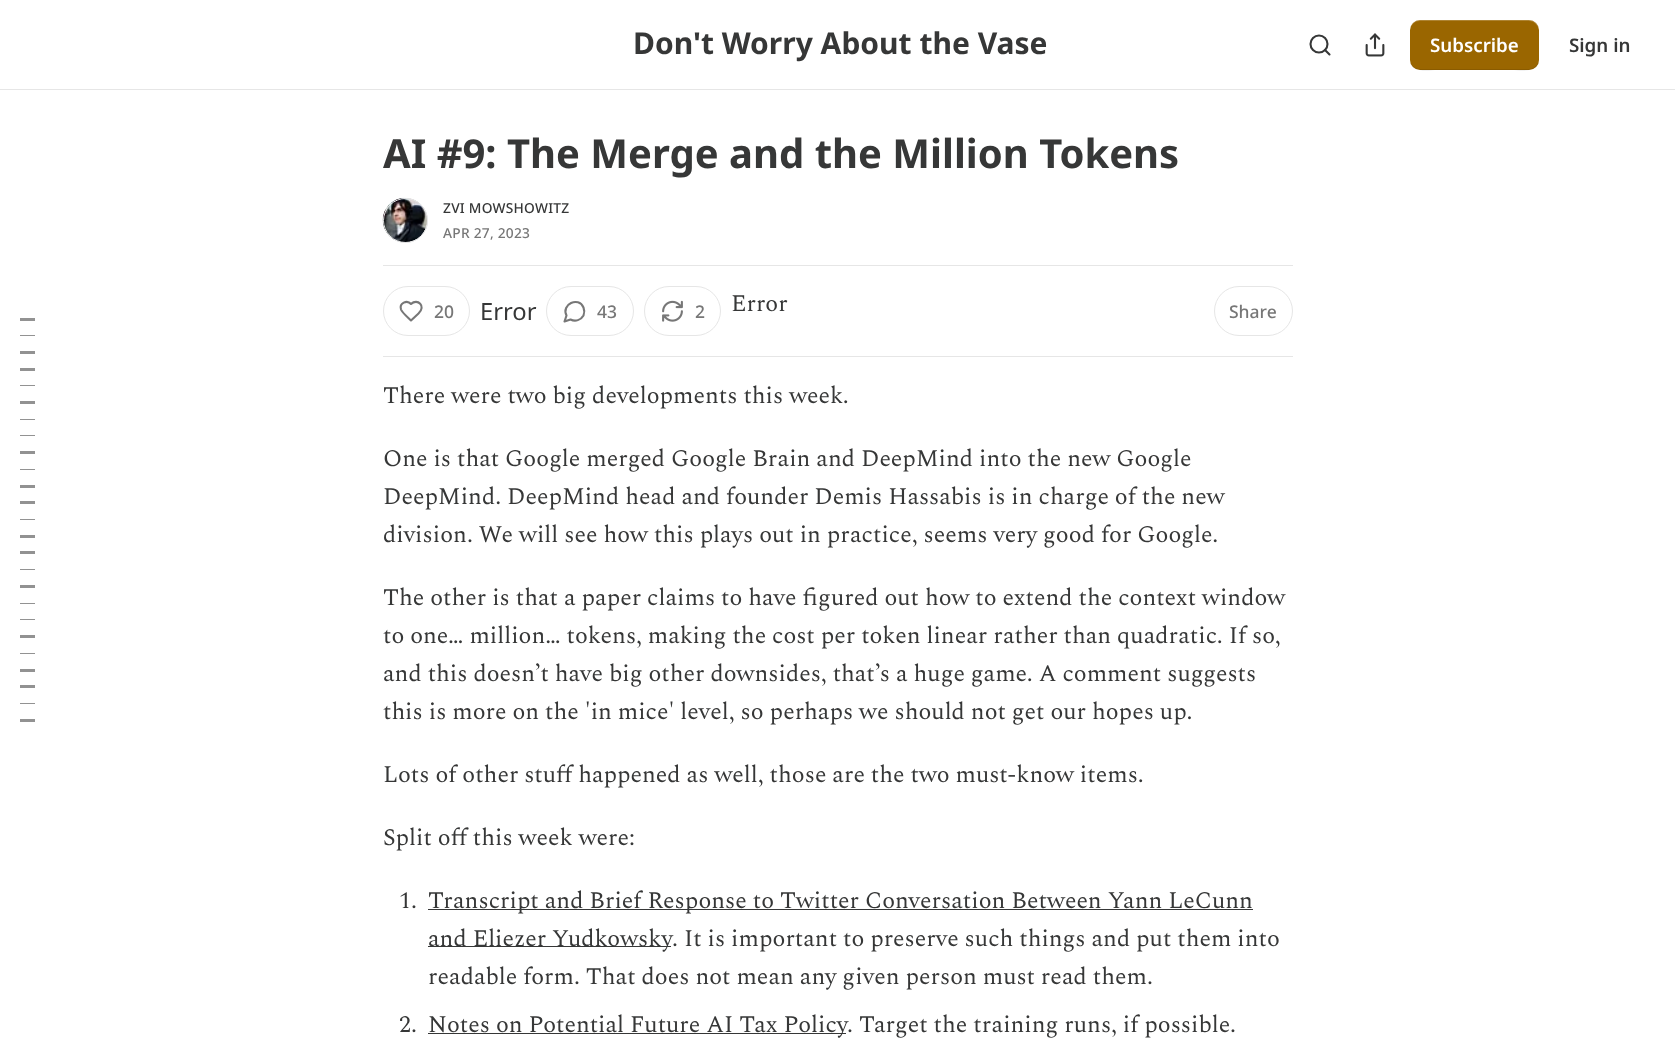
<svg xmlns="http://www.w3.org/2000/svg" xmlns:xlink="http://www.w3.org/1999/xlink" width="1675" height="1038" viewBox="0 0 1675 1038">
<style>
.cls-1{font:bold 30px Noto Sans;fill:#363737}
.cls-2{font:600 18.75px Noto Sans;fill:#ffffff}
.cls-3{font:600 18.75px Noto Sans;fill:#363737}
.cls-4{font:bold 40px Noto Sans;fill:#363737}
.cls-5{font:500 13.75px Noto Sans;letter-spacing:0.25px;fill:#363737}
.cls-6{font:500 13.75px Noto Sans;letter-spacing:0.25px;fill:#777777}
.cls-7{font:500 17.5px Noto Sans;fill:#777777}
.cls-8{font:23.75px Noto Sans;fill:#363737}
.cls-9{font:23.75px Spectral;fill:#363737}
</style>
<rect width="100%" height="100%" fill="#ffffff"/>
<rect fill="#e6e6e6" x="0" y="89" width="1675" height="1"/>
<circle fill="none" stroke="#363737" stroke-width="2.1" cx="1319" cy="44" r="8.5"/>
<path fill="none" stroke="#363737" stroke-width="2.1" stroke-linecap="round" stroke-linejoin="round" d="M1329.5 54.5L1325 50"/>
<image xlink:href="image0.png" x="1365" y="33" width="20" height="24"/>
<rect fill="#9a6600" x="1410" y="20" width="129" height="50" rx="10"/>
<path fill="#000000" fill-opacity="0.1" d="M1410 59C1410 74 1428 70 1438 70H1511C1521 70 1539 74 1539 59C1539 64 1534 69 1529 69H1420C1414 69 1410 64 1410 59Z"/>
<path fill="#ffffff" fill-opacity="0.2" d="M1420 21H1529C1534 21 1539 26 1539 31C1539 16 1521 20 1511 20H1438C1428 20 1410 16 1410 31C1410 26 1414 21 1420 21Z"/>
<circle fill="none" stroke="#e6e6e6" cx="405.5" cy="220.5" r="22"/>
<image xlink:href="image1.png" x="382" y="197" width="46" height="46"/>
<circle fill="none" stroke="#e6e6e6" cx="405.5" cy="220.5" r="22"/>
<rect fill="#e6e6e6" x="383" y="265" width="910" height="1"/>
<rect fill="#e6e6e6" x="383" y="356" width="910" height="1"/>
<rect fill="none" stroke="#e6e6e6" x="383.5" y="286.5" width="86" height="49" rx="24.5"/>
<path fill="none" stroke="#777777" stroke-width="2.1" stroke-linecap="round" stroke-linejoin="round" d="M418.5 313.5C426.5 306 417.5 298 411 304C407 299.5 399 303 401 309.5C402 312.5 408.5 318 411 320.5Z"/>
<rect fill="none" stroke="#e6e6e6" x="546.5" y="286.5" width="87" height="49" rx="24.5"/>
<path fill="none" stroke="#777777" stroke-width="2.1" stroke-linecap="round" stroke-linejoin="round" d="M570.5 319.5C575.5 322 581 320 583.5 315.5C584.5 313 584.5 310 583.5 307.5C578.5 296 561 304.5 566.5 315.5L564.5 321.5Z"/>
<rect fill="none" stroke="#e6e6e6" x="644.5" y="286.5" width="76" height="49" rx="24.5"/>
<image xlink:href="image2.png" x="662" y="300" width="21" height="22"/>
<rect fill="none" stroke="#e6e6e6" x="1214.5" y="286.5" width="78" height="49" rx="24.5"/>
<rect fill="#929292" x="20" y="318" width="15" height="3"/>
<rect fill="#929292" x="20" y="335" width="15" height="1"/>
<rect fill="#929292" x="20" y="351" width="15" height="3"/>
<rect fill="#929292" x="20" y="368" width="15" height="3"/>
<rect fill="#929292" x="20" y="385" width="15" height="1"/>
<rect fill="#929292" x="20" y="401" width="15" height="3"/>
<rect fill="#929292" x="20" y="419" width="15" height="1"/>
<rect fill="#929292" x="20" y="435" width="15" height="1"/>
<rect fill="#929292" x="20" y="451" width="15" height="3"/>
<rect fill="#929292" x="20" y="469" width="15" height="1"/>
<rect fill="#929292" x="20" y="485" width="15" height="3"/>
<rect fill="#929292" x="20" y="501" width="15" height="3"/>
<rect fill="#929292" x="20" y="519" width="15" height="1"/>
<rect fill="#929292" x="20" y="535" width="15" height="3"/>
<rect fill="#929292" x="20" y="551" width="15" height="3"/>
<rect fill="#929292" x="20" y="569" width="15" height="1"/>
<rect fill="#929292" x="20" y="585" width="15" height="3"/>
<rect fill="#929292" x="20" y="603" width="15" height="1"/>
<rect fill="#929292" x="20" y="619" width="15" height="1"/>
<rect fill="#929292" x="20" y="635" width="15" height="3"/>
<rect fill="#929292" x="20" y="653" width="15" height="1"/>
<rect fill="#929292" x="20" y="669" width="15" height="3"/>
<rect fill="#929292" x="20" y="685" width="15" height="3"/>
<rect fill="#929292" x="20" y="703" width="15" height="1"/>
<rect fill="#929292" x="20" y="719" width="15" height="3"/>
<rect fill="#363737" x="428" y="909" width="825" height="1"/>
<rect fill="#363737" x="428" y="946" width="243" height="1"/>
<rect fill="#363737" x="428" y="1033" width="418" height="1"/>
<text class="cls-1" x="633" y="54">Don't Worry About the Vase</text>
<text class="cls-2" x="1430" y="52">Subscribe</text>
<text class="cls-3" x="1569" y="52">Sign in</text>
<text class="cls-4" x="383" y="168">AI #9: The Merge and the Million Tokens</text>
<text class="cls-5" x="443" y="213">ZVI MOWSHOWITZ</text>
<text class="cls-6" x="443" y="238">APR 27, 2023</text>
<text class="cls-7" x="434" y="318">20</text>
<text class="cls-8" x="480" y="320">Error</text>
<text class="cls-7" x="597" y="318">43</text>
<text class="cls-7" x="695" y="318">2</text>
<text class="cls-9" x="731" y="311">Error</text>
<text class="cls-7" x="1229" y="318">Share</text>
<text class="cls-9" x="383" y="403">There were two big developments this week.</text>
<text class="cls-9"><tspan x="383" y="466">One is that Google merged Google Brain and DeepMind into the new Google</tspan><tspan x="383" y="504">DeepMind. DeepMind head and founder Demis Hassabis is in charge of the new</tspan><tspan x="383" y="542">division. We will see how this plays out in practice, seems very good for Google.</tspan></text>
<text class="cls-9"><tspan x="383" y="605">The other is that a paper claims to have figured out how to extend the context window</tspan><tspan x="383" y="643">to one… million… tokens, making the cost per token linear rather than quadratic. If so,</tspan><tspan x="383" y="681">and this doesn’t have big other downsides, that’s a huge game. A comment suggests</tspan><tspan x="383" y="719">this is more on the 'in mice' level, so perhaps we should not get our hopes up.</tspan></text>
<text class="cls-9" x="383" y="782">Lots of other stuff happened as well, those are the two must-know items.</text>
<text class="cls-9" x="383" y="845">Split off this week were:</text>
<text class="cls-9" x="399" y="908">1.</text>
<text class="cls-9"><tspan x="428" y="908">Transcript and Brief Response to Twitter Conversation Between Yann LeCunn</tspan><tspan x="428" y="946">and Eliezer Yudkowsky</tspan></text>
<text class="cls-9" x="672" y="946">. It is important to preserve such things and put them into</text>
<text class="cls-9" x="428" y="984">readable form. That does not mean any given person must read them.</text>
<text class="cls-9" x="399" y="1032">2.</text>
<text class="cls-9" x="428" y="1032">Notes on Potential Future AI Tax Policy</text>
<text class="cls-9" x="847" y="1032">. Target the training runs, if possible.</text>
</svg>
